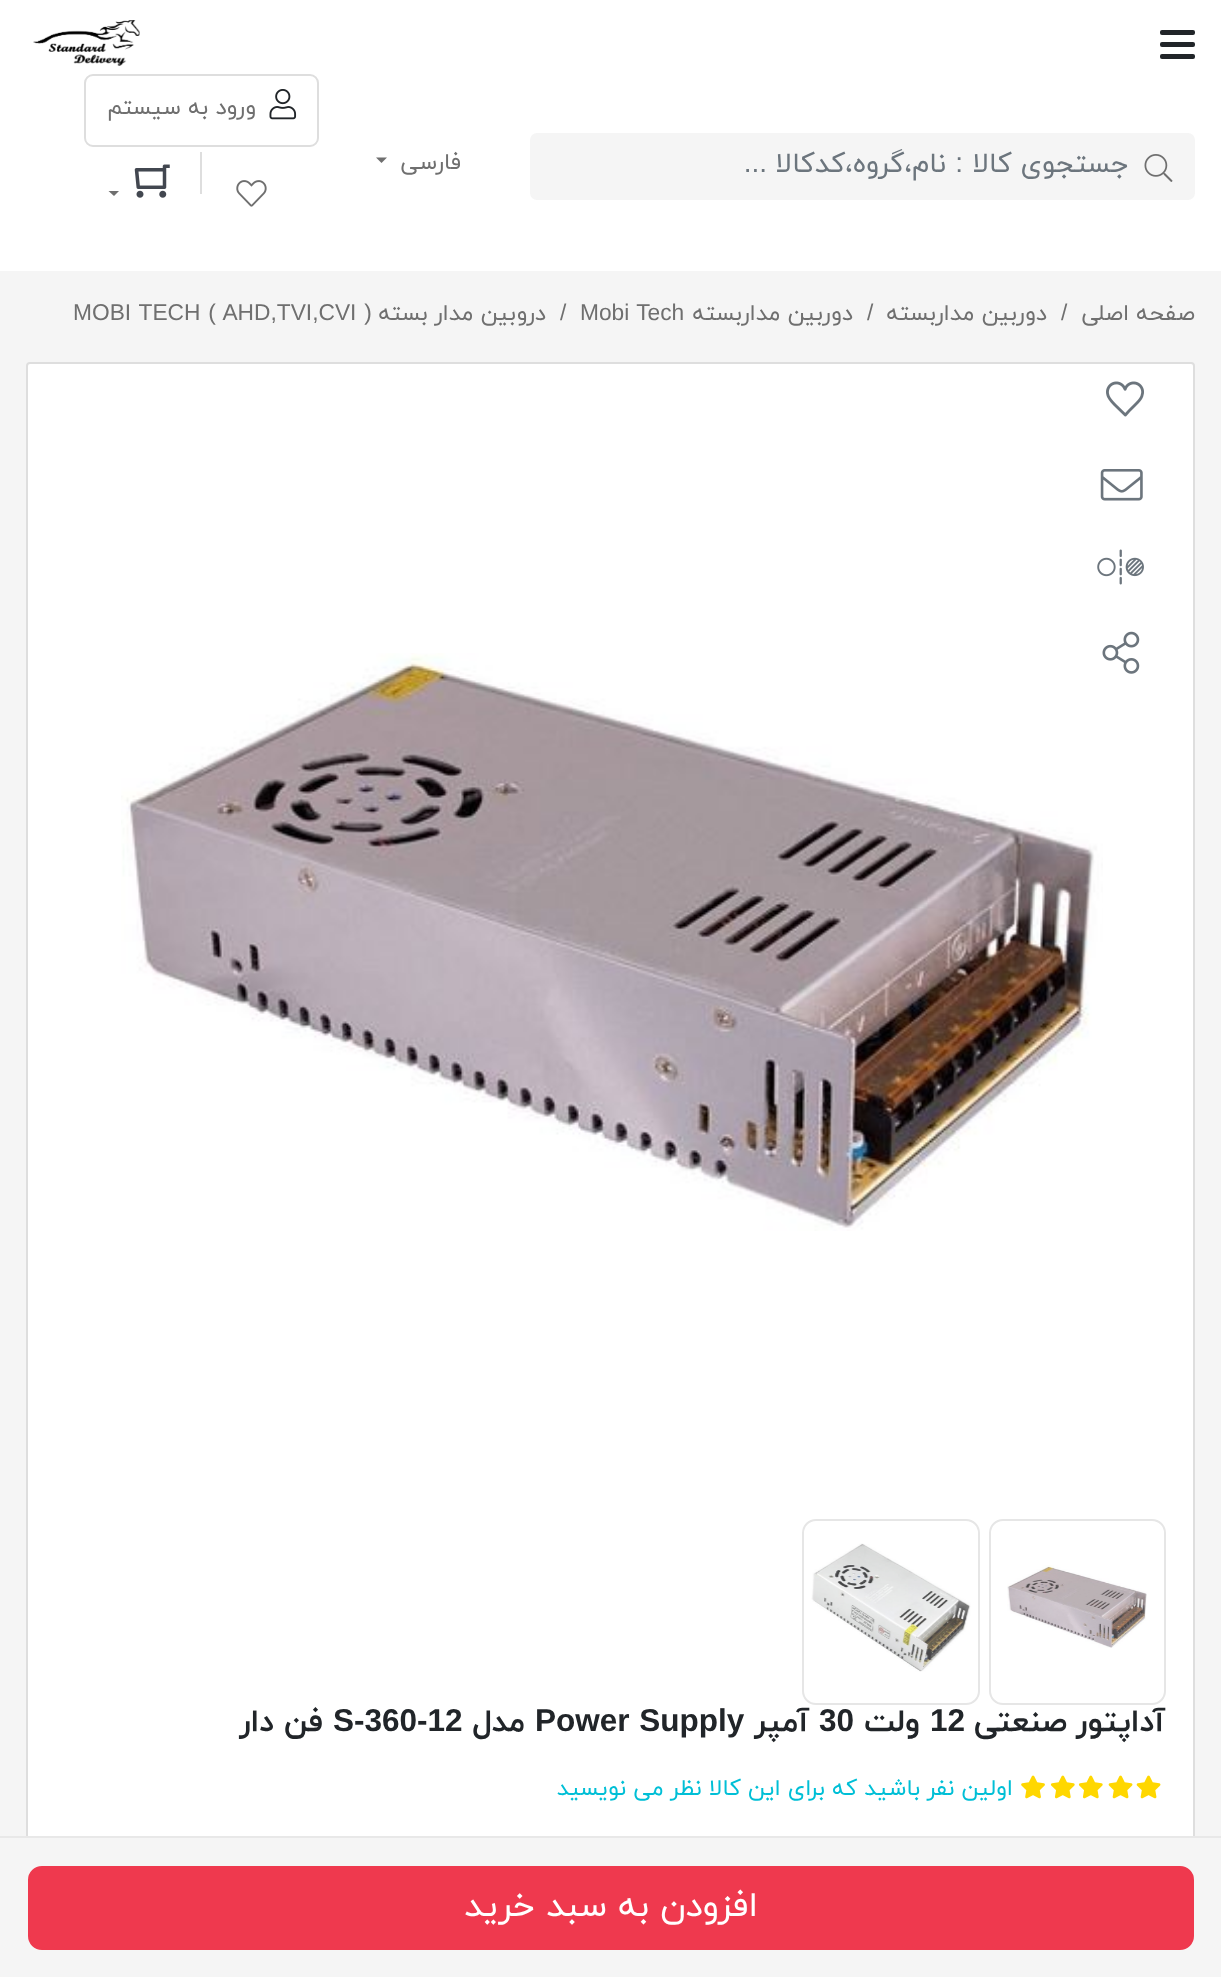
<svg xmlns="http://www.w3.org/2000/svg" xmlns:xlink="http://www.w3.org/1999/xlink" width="1221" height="1977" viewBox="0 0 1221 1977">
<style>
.cls-1{font:28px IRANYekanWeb;direction:rtl;fill:#6c757d}
.cls-2{font:28px Liberation Sans;direction:rtl;fill:#6c757d}
.cls-3{font:22.75px IRANYekanWeb;direction:rtl;fill:#6f6f6f}
.cls-4{font:22.75px Liberation Sans;fill:#6f6f6f}
.cls-5{font:bold 31.5px IRANYekanWeb;direction:rtl;fill:#212529}
.cls-6{font:bold 31.5px Liberation Sans;fill:#212529}
.cls-7{font:22.75px IRANYekanWeb;direction:rtl;fill:#00bfd6}
.cls-8{font:35px IRANYekanWeb;direction:rtl;fill:#ffffff}
</style>
<rect width="100%" height="100%" fill="#f5f5f5"/>
<rect fill="#ffffff" x="0" y="0" width="1221" height="271"/>
<rect fill="#212529" x="1160" y="30" width="35" height="5" rx="2"/>
<rect fill="#212529" x="1160" y="42" width="35" height="5" rx="2"/>
<rect fill="#212529" x="1160" y="54" width="35" height="5" rx="2"/>
<image xlink:href="image0.png" x="33" y="20" width="107" height="46"/>
<rect fill="#f5f5f5" x="530" y="133" width="665" height="67" rx="7"/>
<image xlink:href="image1.png" x="1144" y="154" width="29" height="28"/>
<rect fill="none" stroke="#dedede" stroke-width="2" x="85" y="75" width="233" height="71" rx="8"/>
<image xlink:href="image2.png" x="269" y="89" width="28" height="31"/>
<image xlink:href="image3.png" x="236" y="180" width="31" height="27"/>
<rect fill="#dedede" x="200" y="152" width="2" height="42"/>
<image xlink:href="image4.png" x="134" y="164" width="36" height="34"/>
<path fill="#6f6f6f" d="M108.5 191H119L114 196Z"/>
<path fill="#6f6f6f" d="M376 157.5H387L381.5 163Z"/>
<rect fill="#ffffff" stroke="#dedede" stroke-width="2" x="27" y="363" width="1167" height="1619" rx="3"/>
<image xlink:href="image5.png" x="1106" y="381" width="38" height="36"/>
<image xlink:href="image6.png" x="1100" y="469" width="43" height="32"/>
<image xlink:href="image7.png" x="1097" y="549" width="47" height="36"/>
<image xlink:href="image9.png" x="121" y="653" width="982" height="578"/>
<image xlink:href="image8.png" x="1102" y="631" width="38" height="43"/>
<rect fill="none" stroke="#e6e6e6" stroke-width="2" x="990" y="1520" width="175" height="184" rx="13"/>
<image xlink:href="image10.png" x="1007" y="1565" width="140" height="83"/>
<rect fill="none" stroke="#e6e6e6" stroke-width="2" x="803" y="1520" width="176" height="184" rx="13"/>
<image xlink:href="image11.png" x="811" y="1543" width="160" height="129"/>
<image xlink:href="image12.png" x="1136" y="1775" width="25" height="24"/>
<image xlink:href="image12.png" x="1108" y="1775" width="25" height="24"/>
<image xlink:href="image13.png" x="1078" y="1775" width="25" height="24"/>
<image xlink:href="image13.png" x="1050" y="1775" width="25" height="24"/>
<image xlink:href="image14.png" x="1021" y="1775" width="24" height="24"/>
<rect fill="#f5f5f5" x="26" y="1838" width="1169" height="139"/>
<rect fill="#e8e8e8" x="0" y="1836" width="1221" height="2"/>
<rect fill="#ef394e" stroke="#ef394e" stroke-width="2" x="29" y="1867" width="1164" height="82" rx="13"/>
<text class="cls-1" x="1129" y="172">جستجوی کالا</text>
<text class="cls-2" x="963" y="172">:</text>
<text class="cls-1" x="946" y="172">نام،گروه،کدکالا</text>
<text class="cls-2" x="767" y="172">...</text>
<text class="cls-3" x="256" y="114">ورود به سیستم</text>
<text class="cls-3" x="461" y="169">فارسی</text>
<text class="cls-3" x="1195" y="320">صفحه اصلی</text>
<text class="cls-4" x="1061" y="320">/</text>
<text class="cls-3" x="1047" y="320">دوربین مداربسته</text>
<text class="cls-4" x="867" y="320">/</text>
<text class="cls-3" x="853" y="320">دوربین مداربسته</text>
<text class="cls-4" x="580" y="320" word-spacing="1">Mobi Tech</text>
<text class="cls-4" x="560" y="320">/</text>
<text class="cls-3" x="546" y="320">دروبین مدار بسته</text>
<text class="cls-4" x="73" y="320" word-spacing="1.5">MOBI TECH ( AHD,TVI,CVI )</text>
<text class="cls-5" x="1165" y="1731">آداپتور صنعتی</text>
<text class="cls-6" x="930" y="1731">12</text>
<text class="cls-5" x="920" y="1731">ولت</text>
<text class="cls-6" x="819" y="1731">30</text>
<text class="cls-5" x="809" y="1731">آمپر</text>
<text class="cls-6" x="535" y="1731" word-spacing="1">Power Supply</text>
<text class="cls-5" x="525" y="1731">مدل</text>
<text class="cls-6" x="333" y="1731">S-360-12</text>
<text class="cls-5" x="323" y="1731">فن دار</text>
<text class="cls-7" x="1013" y="1795">اولین نفر باشید که برای این کالا نظر می نویسید</text>
<text class="cls-8" x="758" y="1916">افزودن به سبد خرید</text>
</svg>
